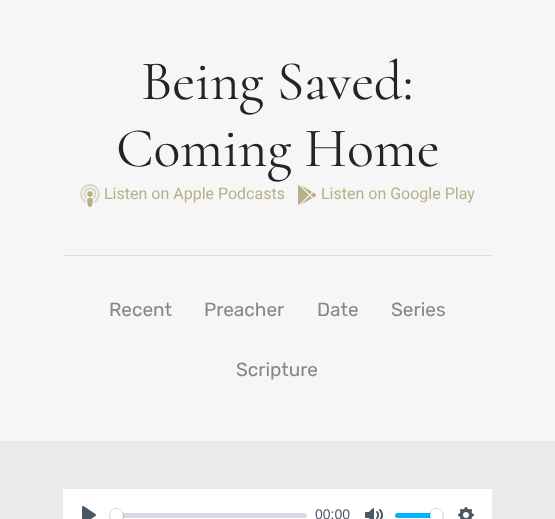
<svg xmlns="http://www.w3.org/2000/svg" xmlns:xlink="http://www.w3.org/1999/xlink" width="555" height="519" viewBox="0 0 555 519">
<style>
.cls-1{font:300 56px Cormorant;fill:#212529}
.cls-2{font:16px Roboto;fill:#b7b086}
.cls-3{font:300 19px Rubik;fill:#868686}
.cls-4{font:14px Liberation Sans;fill:#4a5764}
</style>
<rect width="100%" height="100%" fill="#eaeaea"/>
<rect fill="#f6f6f6" x="0" y="0" width="555" height="441"/>
<image xlink:href="image0.png" x="80" y="184" width="20" height="23"/>
<image xlink:href="image1.png" x="298" y="185" width="18" height="20"/>
<rect fill="#dddddd" x="63" y="255" width="429" height="1"/>
<rect fill="#ffffff" x="63" y="489" width="429" height="30"/>
<image xlink:href="image2.png" x="82" y="506" width="14" height="13"/>
<rect fill="#c1c9d1" fill-opacity="0.66" x="110" y="513" width="197" height="5" rx="2.5"/>
<circle fill="none" stroke="#23292f" stroke-opacity="0.2" cx="116.5" cy="515.5" r="7"/>
<rect fill="#000000" fill-opacity="0.15" filter="blur(0.5px)" x="110" y="510" width="13" height="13" rx="6.5"/>
<circle fill="#ffffff" cx="116.5" cy="515.5" r="6.5"/>
<image xlink:href="image3.png" x="365" y="508" width="18" height="11"/>
<rect fill="#00b3ff" x="395" y="513" width="48" height="5" rx="2.5"/>
<circle fill="none" stroke="#23292f" stroke-opacity="0.2" cx="436.5" cy="515.5" r="7"/>
<rect fill="#000000" fill-opacity="0.15" filter="blur(0.5px)" x="430" y="510" width="13" height="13" rx="6.5"/>
<circle fill="#ffffff" cx="436.5" cy="515.5" r="6.5"/>
<image xlink:href="image4.png" x="458" y="507" width="16" height="12"/>
<text class="cls-1" x="141" y="99">Being Saved:</text>
<text class="cls-1" x="116" y="166">Coming Home</text>
<text class="cls-2" x="104" y="199">Listen on Apple Podcasts</text>
<text class="cls-2" x="321" y="199">Listen on Google Play</text>
<text class="cls-3" x="109" y="316">Recent</text>
<text class="cls-3" x="204" y="316">Preacher</text>
<text class="cls-3" x="317" y="316">Date</text>
<text class="cls-3" x="391" y="316">Series</text>
<text class="cls-3" x="236" y="376">Scripture</text>
<text class="cls-4" x="315" y="519">00:00</text>
</svg>
